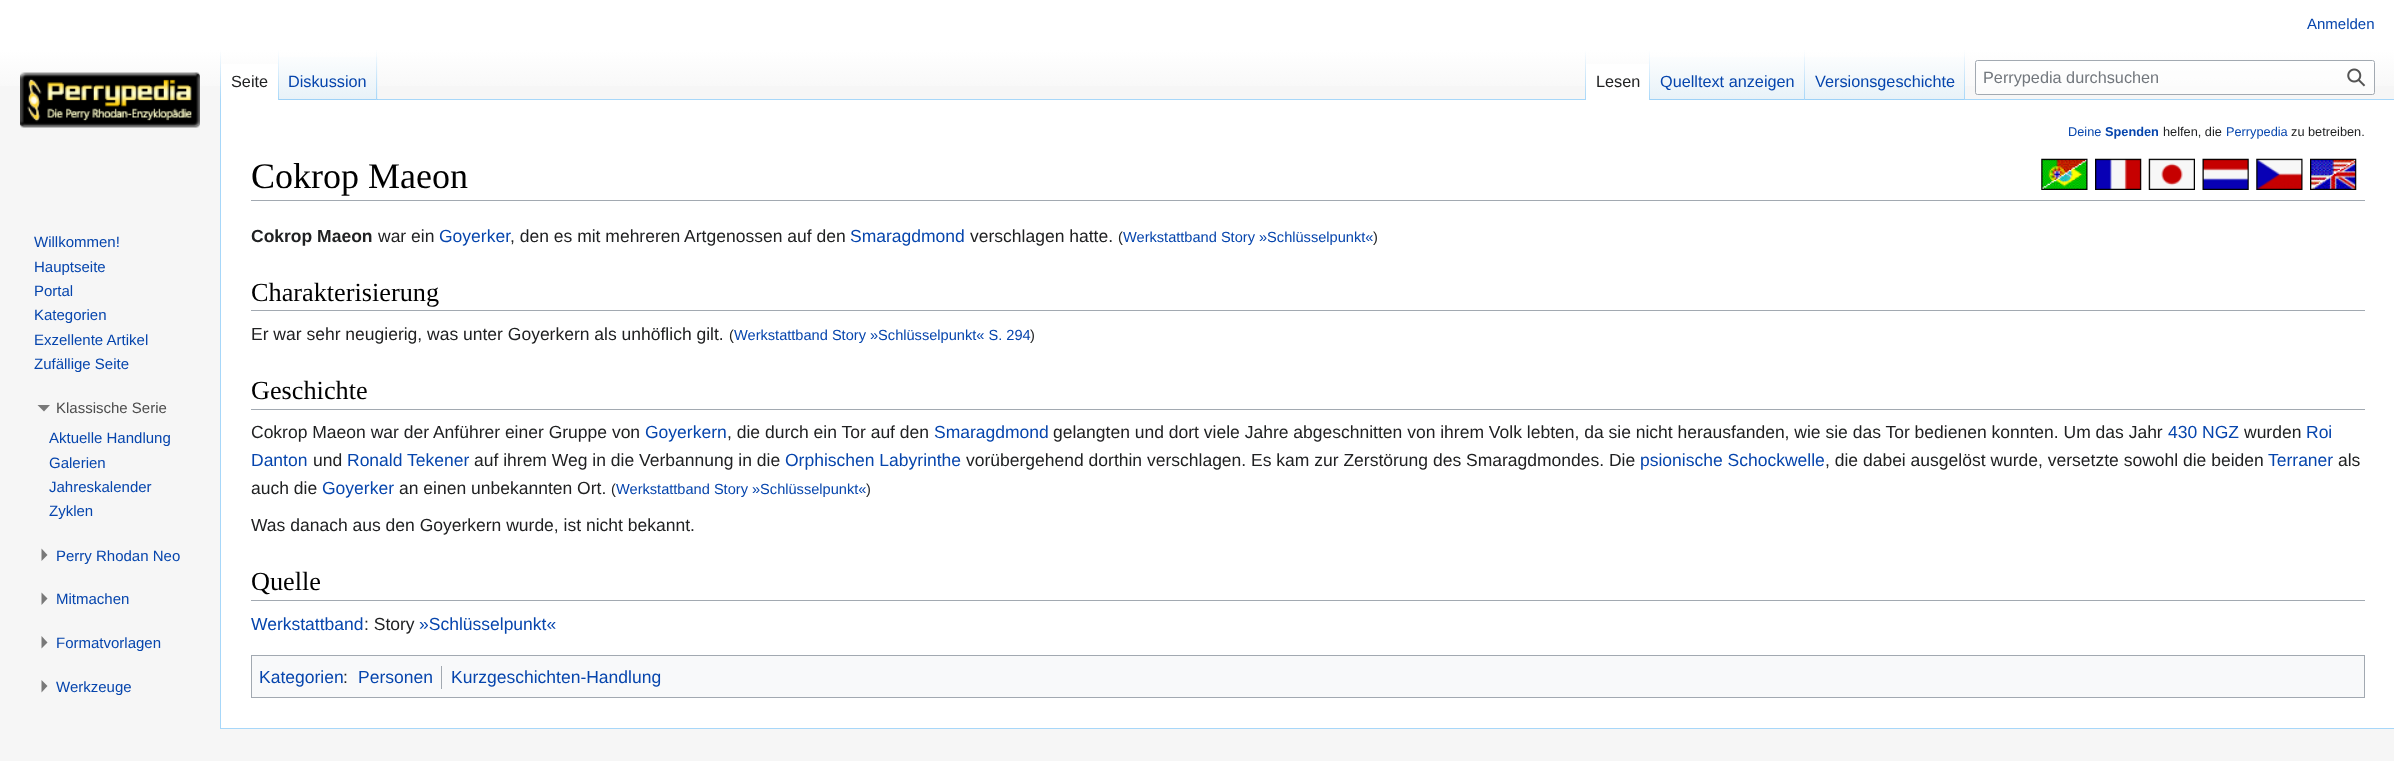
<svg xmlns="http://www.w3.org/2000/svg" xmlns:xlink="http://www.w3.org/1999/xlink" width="2394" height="761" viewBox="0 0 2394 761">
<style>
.cls-1{font:15px Liberation Sans;fill:#0645ad}
.cls-2{font:16.25px Liberation Sans;fill:#202122}
.cls-3{font:16.25px Liberation Sans;fill:#0645ad}
.cls-4{font:16.25px Liberation Sans;fill:#72777d}
.cls-5{font:15px Liberation Sans;fill:#4d4d4d}
.cls-6{font:12.75px Liberation Sans;fill:#0645ad}
.cls-7{font:bold 12.75px Liberation Sans;fill:#0645ad}
.cls-8{font:12.75px Liberation Sans;fill:#202122}
.cls-9{font:36px Liberation Serif;fill:#000000}
.cls-10{font:bold 17.5px Liberation Sans;fill:#202122}
.cls-11{font:17.5px Liberation Sans;fill:#202122}
.cls-12{font:17.5px Liberation Sans;fill:#0645ad}
.cls-13{font:14.6px Liberation Sans;fill:#202122}
.cls-14{font:14.6px Liberation Sans;fill:#0645ad}
.cls-15{font:26.25px Liberation Serif;fill:#000000}
</style>
<defs>
<linearGradient id="g1" gradientUnits="userSpaceOnUse" x1="1198" y1="0" x2="1198" y2="100"><stop offset="0.5" stop-color="#ffffff"/><stop offset="1" stop-color="#f6f6f6"/></linearGradient>
<linearGradient id="g2" gradientUnits="userSpaceOnUse" x1="221" y1="50" x2="221" y2="100"><stop offset="0" stop-color="#a7d7f9" stop-opacity="0"/><stop offset="1" stop-color="#a7d7f9"/></linearGradient>
<linearGradient id="g3" gradientUnits="userSpaceOnUse" x1="278" y1="50" x2="278" y2="100"><stop offset="0" stop-color="#ffffff"/><stop offset="1" stop-color="#a7d7f9"/></linearGradient>
<linearGradient id="g4" gradientUnits="userSpaceOnUse" x1="328" y1="100" x2="328" y2="50"><stop offset="0" stop-color="#77c1f6"/><stop offset="0.03" stop-color="#e8f2f8"/><stop offset="1" stop-color="#ffffff"/></linearGradient>
<linearGradient id="g5" gradientUnits="userSpaceOnUse" x1="377" y1="50" x2="377" y2="100"><stop offset="0" stop-color="#a7d7f9" stop-opacity="0"/><stop offset="1" stop-color="#a7d7f9"/></linearGradient>
<linearGradient id="g6" gradientUnits="userSpaceOnUse" x1="1586" y1="50" x2="1586" y2="100"><stop offset="0" stop-color="#a7d7f9" stop-opacity="0"/><stop offset="1" stop-color="#a7d7f9"/></linearGradient>
<linearGradient id="g7" gradientUnits="userSpaceOnUse" x1="1649" y1="50" x2="1649" y2="100"><stop offset="0" stop-color="#ffffff"/><stop offset="1" stop-color="#a7d7f9"/></linearGradient>
<linearGradient id="g8" gradientUnits="userSpaceOnUse" x1="1728" y1="100" x2="1728" y2="50"><stop offset="0" stop-color="#77c1f6"/><stop offset="0.03" stop-color="#e8f2f8"/><stop offset="1" stop-color="#ffffff"/></linearGradient>
<linearGradient id="g9" gradientUnits="userSpaceOnUse" x1="1804" y1="50" x2="1804" y2="100"><stop offset="0" stop-color="#a7d7f9" stop-opacity="0"/><stop offset="1" stop-color="#a7d7f9"/></linearGradient>
<linearGradient id="g10" gradientUnits="userSpaceOnUse" x1="1885" y1="100" x2="1885" y2="50"><stop offset="0" stop-color="#77c1f6"/><stop offset="0.03" stop-color="#e8f2f8"/><stop offset="1" stop-color="#ffffff"/></linearGradient>
<linearGradient id="g11" gradientUnits="userSpaceOnUse" x1="1964" y1="50" x2="1964" y2="100"><stop offset="0" stop-color="#a7d7f9" stop-opacity="0"/><stop offset="1" stop-color="#a7d7f9"/></linearGradient>
</defs>
<rect width="100%" height="100%" fill="#f6f6f6"/>
<rect fill="url(#g1)" x="0" y="0" width="2394" height="86"/>
<rect fill="#a7d7f9" x="220" y="728" width="2174" height="1"/>
<rect fill="#a7d7f9" x="220" y="99" width="1" height="630"/>
<rect fill="url(#g2)" x="220" y="50" width="1" height="50"/>
<rect fill="#ffffff" x="221" y="64" width="57" height="36"/>
<rect fill="url(#g3)" x="278" y="50" width="1" height="50"/>
<rect fill="url(#g4)" x="279" y="57" width="99" height="43"/>
<rect fill="url(#g5)" x="376" y="50" width="1" height="50"/>
<rect fill="#a7d7f9" x="378" y="99" width="2016" height="1"/>
<rect fill="url(#g6)" x="1585" y="50" width="1" height="50"/>
<rect fill="#ffffff" x="1586" y="64" width="63" height="36"/>
<rect fill="url(#g7)" x="1649" y="50" width="1" height="50"/>
<rect fill="url(#g8)" x="1650" y="57" width="155" height="43"/>
<rect fill="url(#g9)" x="1804" y="50" width="1" height="50"/>
<rect fill="url(#g10)" x="1805" y="57" width="160" height="43"/>
<rect fill="url(#g11)" x="1964" y="50" width="1" height="50"/>
<rect fill="#ffffff" fill-opacity="0.5" stroke="#a2a9b1" x="1975.5" y="60.5" width="399" height="34" rx="2"/>
<image xlink:href="image0.png" x="2347" y="68" width="19" height="19"/>
<image xlink:href="image1.png" x="20" y="72" width="180" height="56"/>
<path fill="#797979" d="M50 405L44 411.5L37.5 405Z"/>
<path fill="#797979" d="M41.5 548.5L47.5 555L41.5 561Z"/>
<path fill="#797979" d="M41.5 592.5L47.5 598.5L41.5 605Z"/>
<path fill="#797979" d="M41.5 636L47.5 642.5L41.5 648.5Z"/>
<path fill="#797979" d="M41.5 680L47.5 686L41.5 692.5Z"/>
<rect fill="#ffffff" x="221" y="100" width="2173" height="628"/>
<rect fill="#a2a9b1" x="251" y="200" width="2114" height="1"/>
<image xlink:href="image2.png" x="2041" y="158" width="47" height="32"/>
<image xlink:href="image3.png" x="2095" y="158" width="47" height="32"/>
<image xlink:href="image4.png" x="2148" y="158" width="47" height="32"/>
<image xlink:href="image5.png" x="2202" y="158" width="47" height="32"/>
<image xlink:href="image6.png" x="2256" y="158" width="47" height="32"/>
<image xlink:href="image7.png" x="2310" y="158" width="47" height="32"/>
<rect fill="#a2a9b1" x="251" y="310" width="2114" height="1"/>
<rect fill="#a2a9b1" x="251" y="409" width="2114" height="1"/>
<rect fill="#a2a9b1" x="251" y="600" width="2114" height="1"/>
<rect fill="#f8f9fa" stroke="#a2a9b1" x="251.5" y="655.5" width="2113" height="42"/>
<rect fill="#a2a9b1" x="441" y="666" width="1" height="23"/>
<text class="cls-1" x="2307" y="29">Anmelden</text>
<text class="cls-2" x="231" y="87">Seite</text>
<text class="cls-3" x="288" y="87">Diskussion</text>
<text class="cls-2" x="1596" y="87">Lesen</text>
<text class="cls-3" x="1660" y="87">Quelltext anzeigen</text>
<text class="cls-3" x="1815" y="87">Versionsgeschichte</text>
<text class="cls-4" x="1983" y="83">Perrypedia durchsuchen</text>
<text class="cls-1"><tspan x="34" y="247">Willkommen!</tspan><tspan x="34" y="272">Hauptseite</tspan><tspan x="34" y="296">Portal</tspan><tspan x="34" y="320">Kategorien</tspan><tspan x="34" y="345">Exzellente Artikel</tspan><tspan x="34" y="369">Zufällige Seite</tspan></text>
<text class="cls-5" x="56" y="413">Klassische Serie</text>
<text class="cls-1"><tspan x="49" y="443">Aktuelle Handlung</tspan><tspan x="49" y="468">Galerien</tspan><tspan x="49" y="492">Jahreskalender</tspan><tspan x="49" y="516">Zyklen</tspan></text>
<text class="cls-1" x="56" y="561">Perry Rhodan Neo</text>
<text class="cls-1" x="56" y="604">Mitmachen</text>
<text class="cls-1" x="56" y="648">Formatvorlagen</text>
<text class="cls-1" x="56" y="692">Werkzeuge</text>
<text class="cls-6" x="2068" y="136">Deine</text>
<text class="cls-7" x="2105" y="136">Spenden</text>
<text class="cls-8" x="2163" y="136">helfen, die</text>
<text class="cls-6" x="2226" y="136">Perrypedia</text>
<text class="cls-8" x="2291" y="136">zu betreiben.</text>
<text class="cls-9" x="251" y="188">Cokrop Maeon</text>
<text class="cls-10" x="251" y="242">Cokrop Maeon</text>
<text class="cls-11" x="378" y="242">war ein</text>
<text class="cls-12" x="439" y="242">Goyerker</text>
<text class="cls-11" x="510" y="242">, den es mit mehreren Artgenossen auf den</text>
<text class="cls-12" x="850" y="242">Smaragdmond</text>
<text class="cls-11" x="970" y="242">verschlagen hatte.</text>
<text class="cls-13" x="1118" y="242">(</text>
<text class="cls-14" x="1123" y="242">Werkstattband Story »Schlüsselpunkt«</text>
<text class="cls-13" x="1373" y="242">)</text>
<text class="cls-15" x="251" y="301">Charakterisierung</text>
<text class="cls-11" x="251" y="340">Er war sehr neugierig, was unter Goyerkern als unhöflich gilt.</text>
<text class="cls-13" x="729" y="340">(</text>
<text class="cls-14" x="734" y="340">Werkstattband Story »Schlüsselpunkt« S. 294</text>
<text class="cls-13" x="1030" y="340">)</text>
<text class="cls-15" x="251" y="399">Geschichte</text>
<text class="cls-11" x="251" y="438">Cokrop Maeon war der Anführer einer Gruppe von</text>
<text class="cls-12" x="645" y="438">Goyerkern</text>
<text class="cls-11" x="727" y="438">, die durch ein Tor auf den</text>
<text class="cls-12" x="934" y="438">Smaragdmond</text>
<text class="cls-11" x="1053" y="438">gelangten und dort viele Jahre abgeschnitten von ihrem Volk lebten, da sie nicht herausfanden, wie sie das Tor bedienen konnten. Um das Jahr</text>
<text class="cls-12" x="2168" y="438">430 NGZ</text>
<text class="cls-11" x="2244" y="438">wurden</text>
<text class="cls-12" x="2306" y="438">Roi</text>
<text class="cls-12" x="251" y="466">Danton</text>
<text class="cls-11" x="313" y="466">und</text>
<text class="cls-12" x="347" y="466">Ronald Tekener</text>
<text class="cls-11" x="474" y="466">auf ihrem Weg in die Verbannung in die</text>
<text class="cls-12" x="785" y="466">Orphischen Labyrinthe</text>
<text class="cls-11" x="966" y="466">vorübergehend dorthin verschlagen. Es kam zur Zerstörung des Smaragdmondes. Die</text>
<text class="cls-12" x="1640" y="466">psionische Schockwelle</text>
<text class="cls-11" x="1825" y="466">, die dabei ausgelöst wurde, versetzte sowohl die beiden</text>
<text class="cls-12" x="2268" y="466">Terraner</text>
<text class="cls-11" x="2338" y="466">als</text>
<text class="cls-11" x="251" y="494">auch die</text>
<text class="cls-12" x="322" y="494">Goyerker</text>
<text class="cls-11" x="399" y="494">an einen unbekannten Ort.</text>
<text class="cls-13" x="611" y="494">(</text>
<text class="cls-14" x="616" y="494">Werkstattband Story »Schlüsselpunkt«</text>
<text class="cls-13" x="866" y="494">)</text>
<text class="cls-11" x="251" y="531">Was danach aus den Goyerkern wurde, ist nicht bekannt.</text>
<text class="cls-15" x="251" y="590">Quelle</text>
<text class="cls-12" x="251" y="630">Werkstattband</text>
<text class="cls-11" x="364" y="630">: Story</text>
<text class="cls-12" x="419" y="630">»Schlüsselpunkt«</text>
<text class="cls-12" x="259" y="683">Kategorien</text>
<text class="cls-11" x="343" y="683">:</text>
<text class="cls-12" x="358" y="683">Personen</text>
<text class="cls-12" x="451" y="683">Kurzgeschichten-Handlung</text>
</svg>
